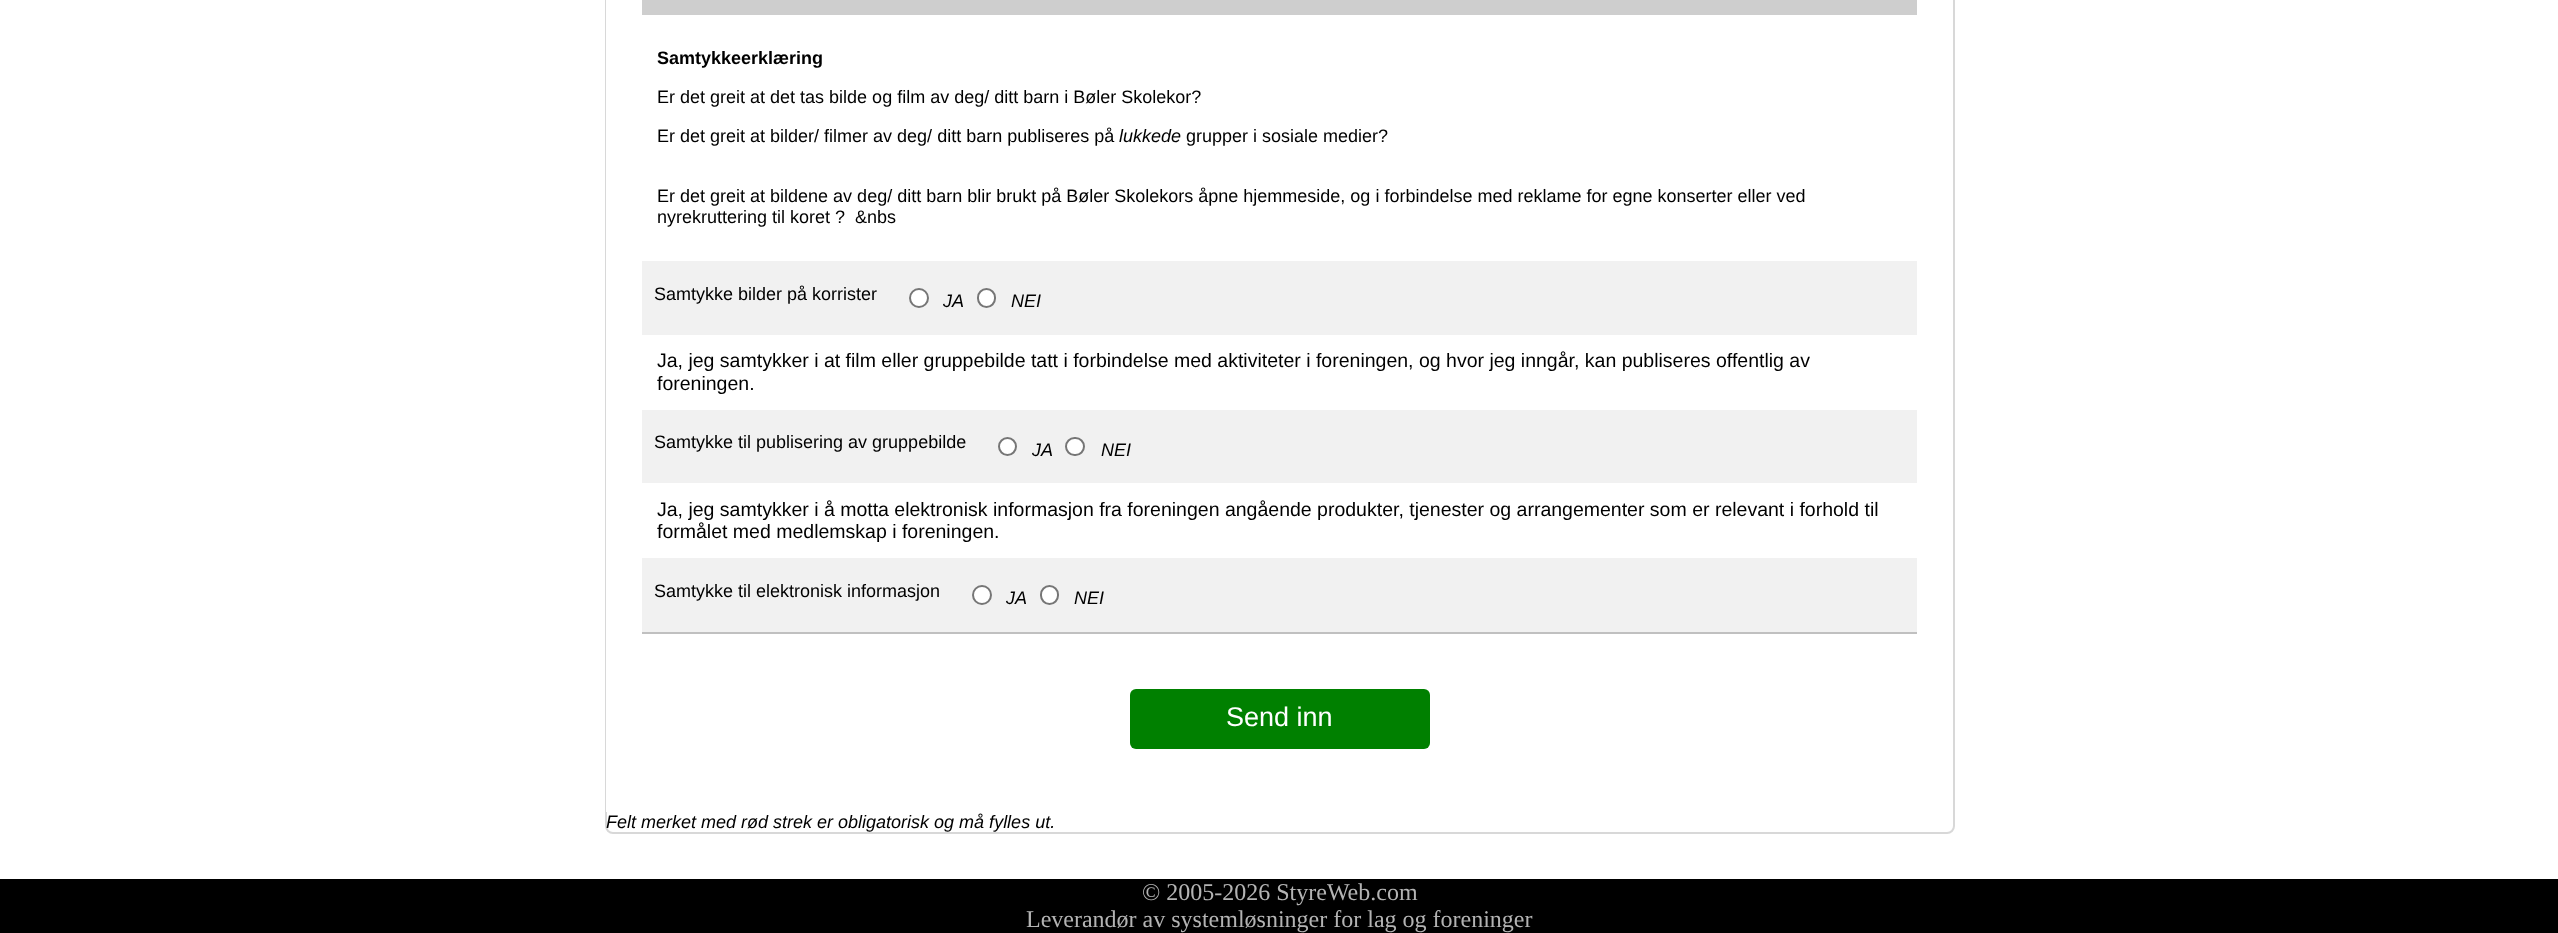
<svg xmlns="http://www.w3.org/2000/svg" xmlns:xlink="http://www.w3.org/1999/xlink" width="2558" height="933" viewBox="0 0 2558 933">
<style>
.cls-1{font:bold 18px Liberation Sans;fill:#000000}
.cls-2{font:18px Liberation Sans;fill:#000000}
.cls-3{font:italic 18px Liberation Sans;fill:#000000}
.cls-4{font:19.5px Liberation Sans;fill:#000000}
.cls-5{font:27px Liberation Sans;fill:#ffffff}
.cls-6{font:24px Liberation Serif;fill:#b3b3b3}
</style>
<rect width="100%" height="100%" fill="#ffffff"/>
<rect fill="none" stroke="#d8d8d8" stroke-width="2" x="606" y="-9" width="1348" height="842" rx="7"/>
<rect fill="#ffffff" x="606" y="0" width="1" height="812"/>
<rect fill="#cecece" x="642" y="0" width="1275" height="15"/>
<rect fill="#f1f1f1" x="642" y="261" width="1275" height="371"/>
<rect fill="#c0c0c0" x="642" y="632" width="1275" height="2"/>
<circle fill="#ffffff" stroke="#767676" stroke-width="2" cx="919" cy="298" r="9"/>
<rect fill="#ffffff" stroke="#767676" stroke-width="2" x="978" y="289" width="17" height="18" rx="8.5"/>
<rect fill="#ffffff" x="642" y="335" width="1275" height="75"/>
<circle fill="#ffffff" stroke="#767676" stroke-width="2" cx="1007.5" cy="446.5" r="8.5"/>
<rect fill="#ffffff" stroke="#767676" stroke-width="2" x="1066" y="438" width="18" height="17" rx="8.5"/>
<rect fill="#ffffff" x="642" y="483" width="1275" height="75"/>
<circle fill="#ffffff" stroke="#767676" stroke-width="2" cx="982" cy="595" r="9"/>
<rect fill="#ffffff" stroke="#767676" stroke-width="2" x="1041" y="586" width="17" height="18" rx="8.5"/>
<rect fill="#008000" x="1130" y="689" width="300" height="60" rx="6"/>
<rect fill="#000000" x="0" y="879" width="2558" height="54"/>
<text class="cls-1" x="657" y="64">Samtykkeerklæring</text>
<text class="cls-2" x="657" y="103">Er det greit at det tas bilde og film av deg/ ditt barn i Bøler Skolekor?</text>
<text class="cls-2" x="657" y="142">Er det greit at bilder/ filmer av deg/ ditt barn publiseres på</text>
<text class="cls-3" x="1119" y="142">lukkede</text>
<text class="cls-2" x="1186" y="142">grupper i sosiale medier?</text>
<text class="cls-2"><tspan x="657" y="202">Er det greit at bildene av deg/ ditt barn blir brukt på Bøler Skolekors åpne hjemmeside, og i forbindelse med reklame for egne konserter eller ved</tspan><tspan x="657" y="223">nyrekruttering til koret ?</tspan></text>
<text class="cls-2" x="855" y="223">&amp;nbs</text>
<text class="cls-2" x="654" y="300">Samtykke bilder på korrister</text>
<text class="cls-3" x="943" y="307">JA</text>
<text class="cls-3" x="1011" y="307">NEI</text>
<text class="cls-4"><tspan x="657" y="367">Ja, jeg samtykker i at film eller gruppebilde tatt i forbindelse med aktiviteter i foreningen, og hvor jeg inngår, kan publiseres offentlig av</tspan><tspan x="657" y="390">foreningen.</tspan></text>
<text class="cls-2" x="654" y="448">Samtykke til publisering av gruppebilde</text>
<text class="cls-3" x="1032" y="456">JA</text>
<text class="cls-3" x="1101" y="456">NEI</text>
<text class="cls-4"><tspan x="657" y="516">Ja, jeg samtykker i å motta elektronisk informasjon fra foreningen angående produkter, tjenester og arrangementer som er relevant i forhold til</tspan><tspan x="657" y="538">formålet med medlemskap i foreningen.</tspan></text>
<text class="cls-2" x="654" y="597">Samtykke til elektronisk informasjon</text>
<text class="cls-3" x="1006" y="604">JA</text>
<text class="cls-3" x="1074" y="604">NEI</text>
<text class="cls-5" x="1226" y="726">Send inn</text>
<text class="cls-3" x="606" y="828">Felt merket med rød strek er obligatorisk og må fylles ut.</text>
<text class="cls-6" x="1142" y="900">© 2005-2026 StyreWeb.com</text>
<text class="cls-6" x="1026" y="927">Leverandør av systemløsninger for lag og foreninger</text>
</svg>
